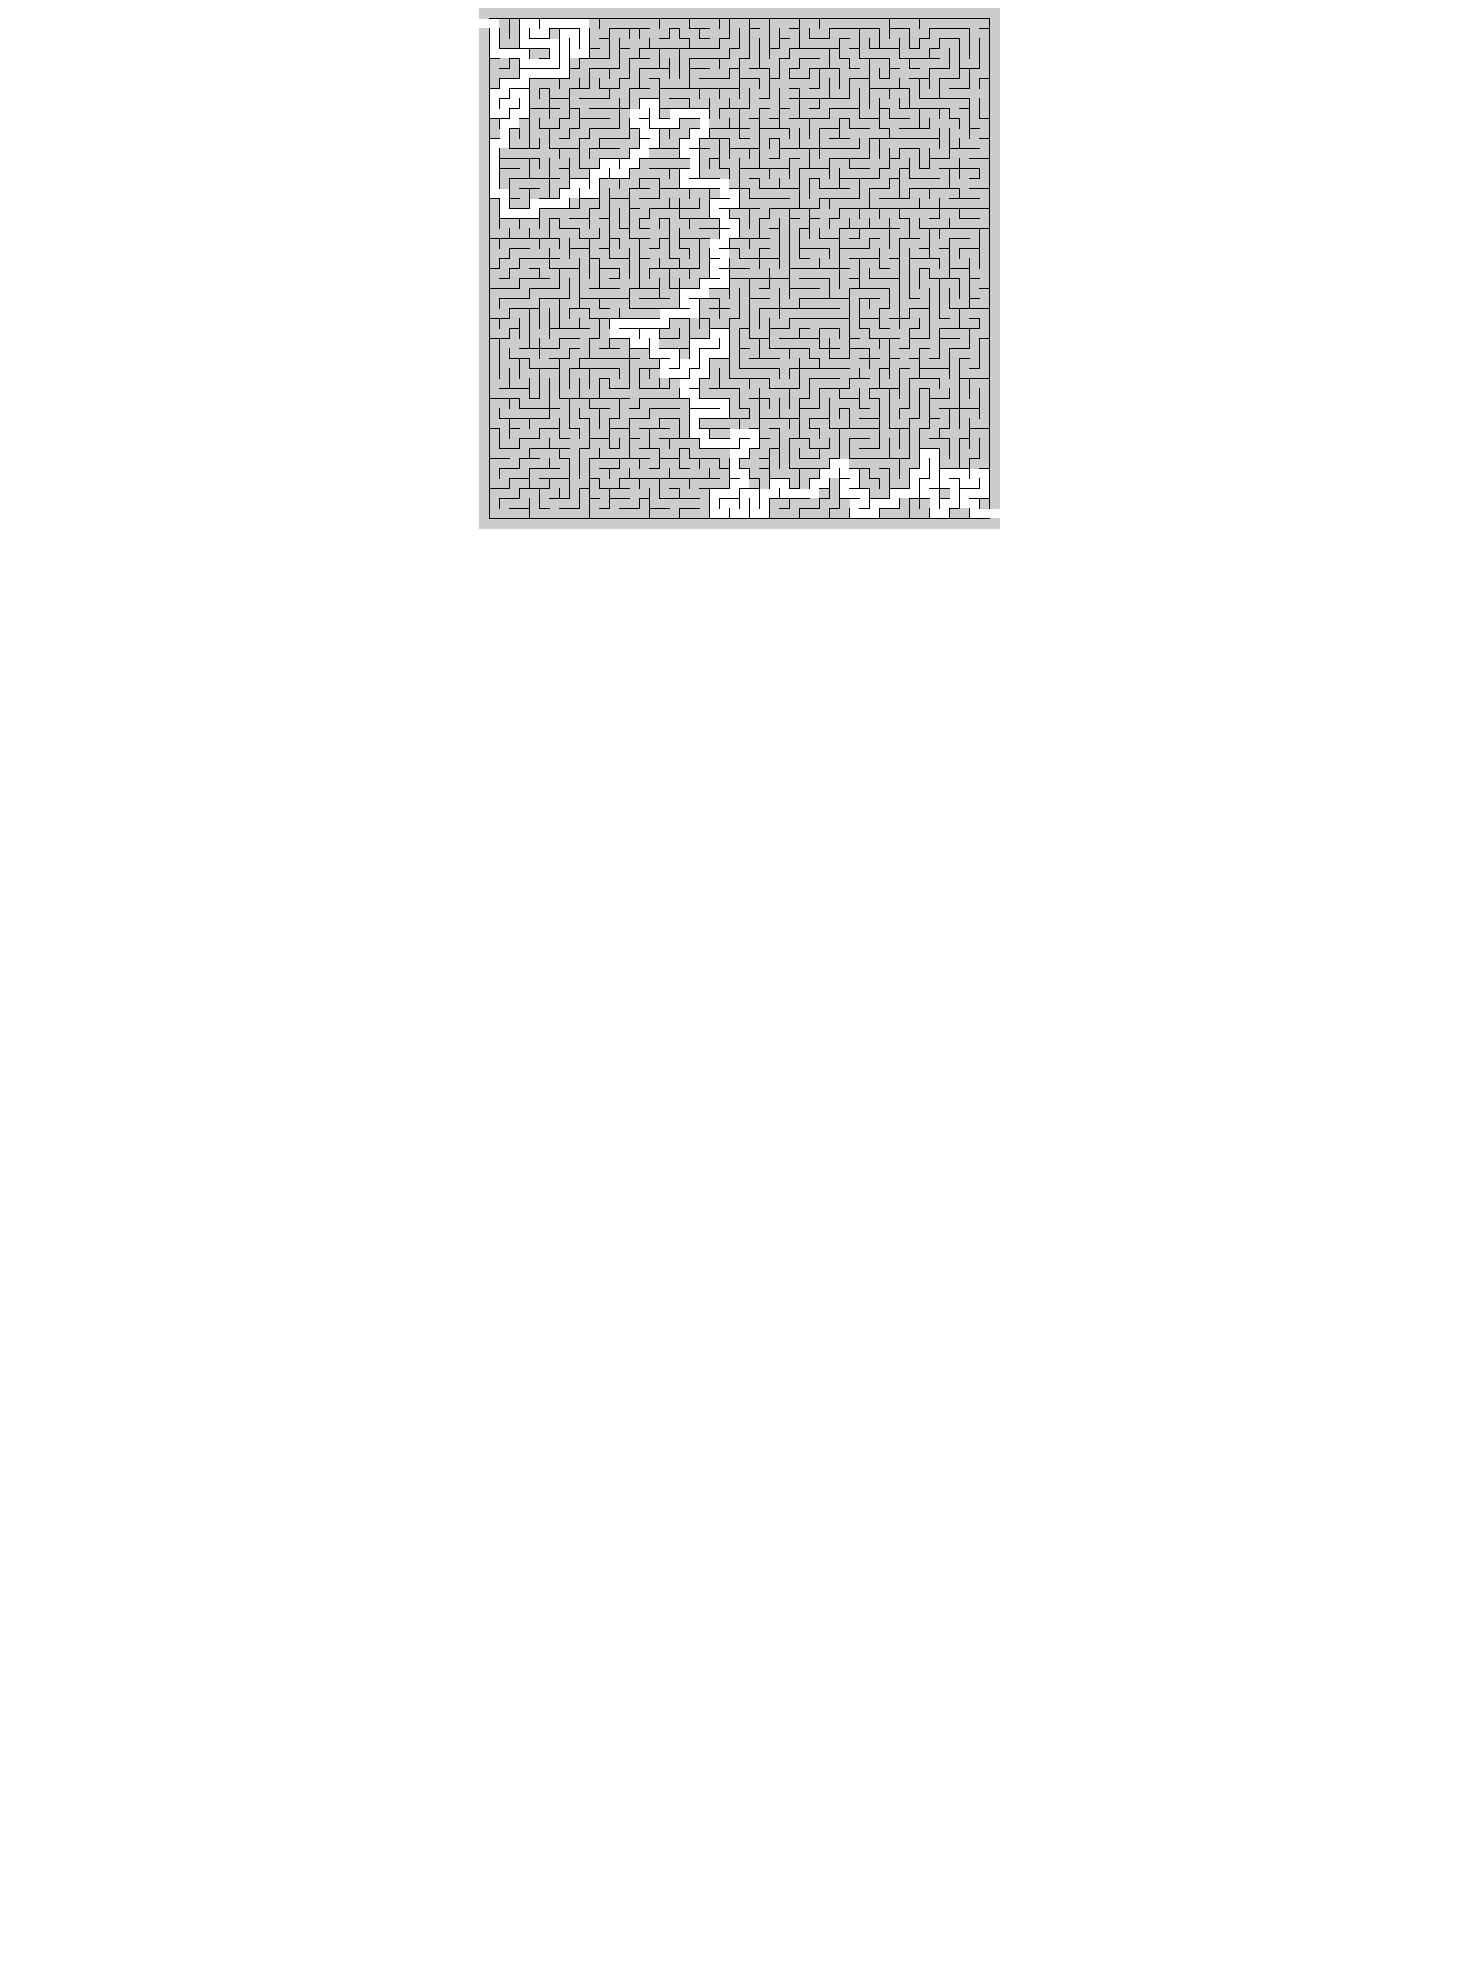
<svg xmlns="http://www.w3.org/2000/svg" xmlns:xlink="http://www.w3.org/1999/xlink" width="1479" height="1962" viewBox="0 0 1479 1962">
<rect width="100%" height="100%" fill="#ffffff"/>
<image xlink:href="image0.png" x="479" y="8" width="521" height="521"/>
</svg>
